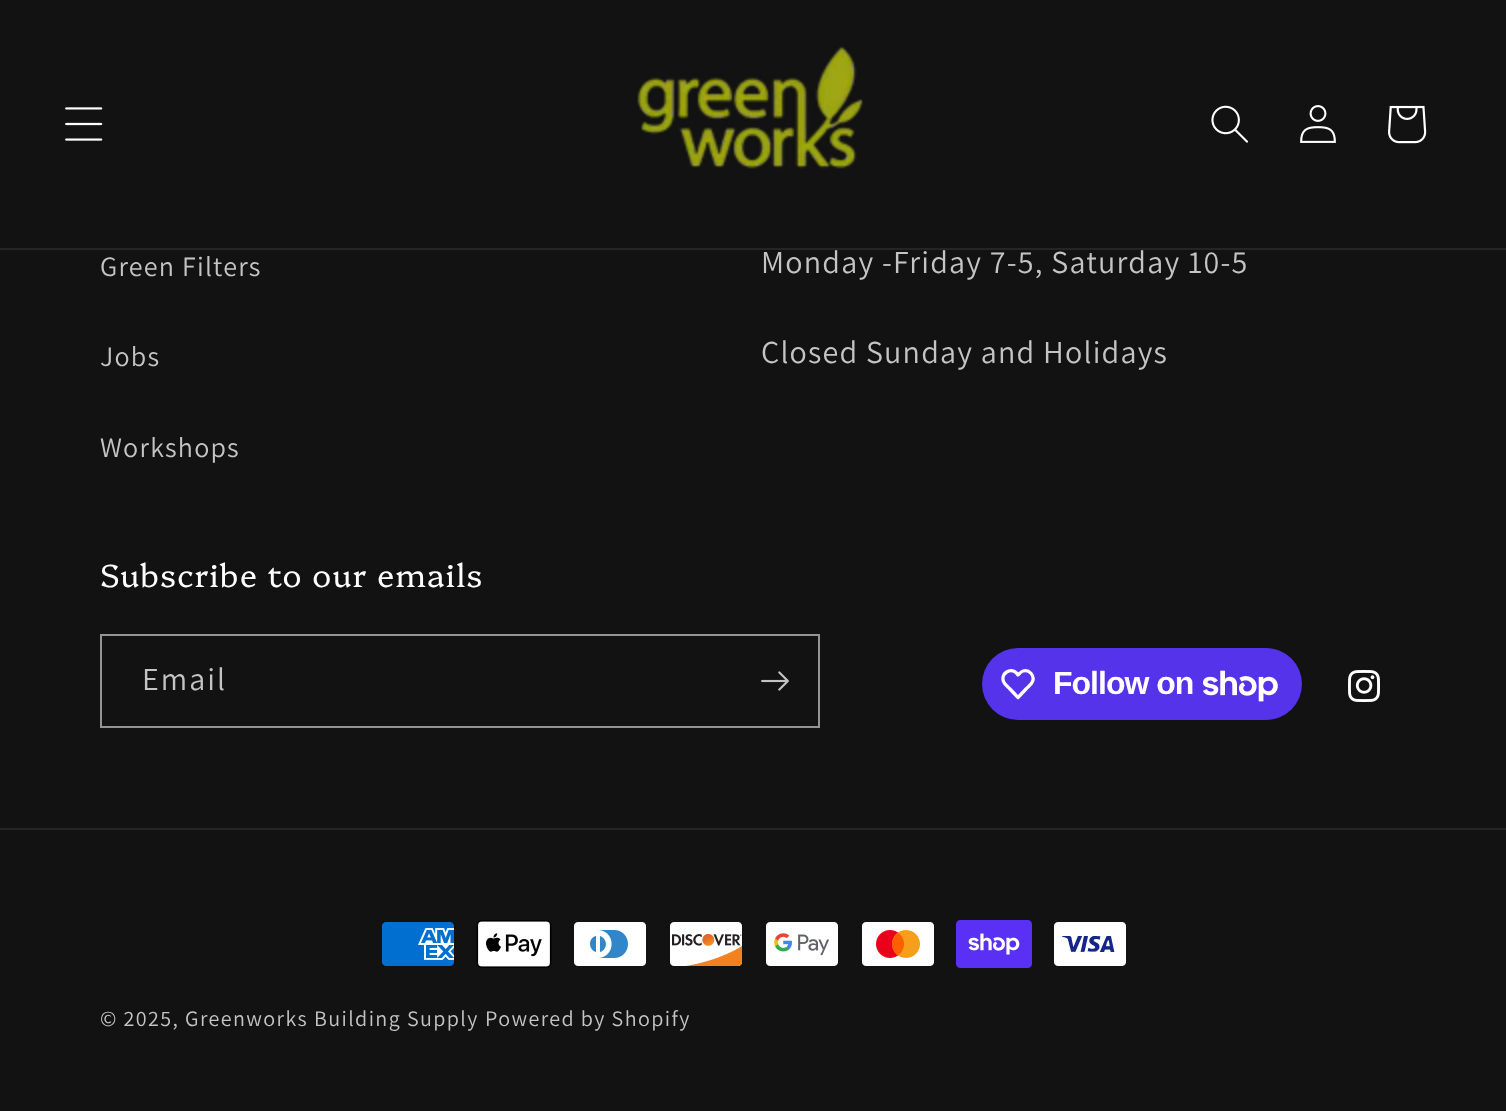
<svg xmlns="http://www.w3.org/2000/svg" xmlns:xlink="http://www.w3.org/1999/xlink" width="1506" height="1111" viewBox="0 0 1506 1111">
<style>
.cls-1{font:28px Assistant;letter-spacing:1.2px;fill:#c4c4c4}
.cls-2{font:32px Assistant;letter-spacing:1.2px;fill:#c4c4c4}
.cls-3{font:300 32px Platypi;letter-spacing:1.2px;fill:#ffffff}
.cls-4{font:32px Assistant;letter-spacing:2px;fill:#c4c4c4}
.cls-5{font:bold 32px Liberation Sans;letter-spacing:-1px;fill:#ffffff}
.cls-6{font:22px Assistant;letter-spacing:1.4px;fill:#c4c4c4}
</style>
<rect width="100%" height="100%" fill="#121212"/>
<rect fill="#252525" x="0" y="248" width="1506" height="2"/>
<image xlink:href="image0.png" x="65" y="107" width="38" height="34"/>
<image xlink:href="image1.png" x="637" y="46" width="226" height="123"/>
<image xlink:href="image2.png" x="1211" y="105" width="37" height="38"/>
<image xlink:href="image3.png" x="1300" y="105" width="36" height="38"/>
<image xlink:href="image4.png" x="1388" y="105" width="39" height="39"/>
<rect fill="none" stroke="#949494" stroke-width="2" x="101" y="635" width="718" height="92"/>
<image xlink:href="image5.png" x="761" y="671" width="28" height="20"/>
<rect fill="#5433eb" x="982" y="648" width="320" height="72" rx="36"/>
<path fill="none" stroke="#ffffff" stroke-width="3.3" stroke-linejoin="round" d="M1016.5 673L1018 675C1019.5 673.5 1021 671.5 1023 671C1029 669 1035 675.5 1032.5 681.5C1031.5 684.5 1028.5 686.5 1026.5 688.5L1018 697.5L1009.5 688.5C1007.5 686.5 1004.5 684.5 1003.5 681.5C1000.5 673.5 1010.5 667 1016.5 673Z"/>
<image xlink:href="image6.png" x="1203" y="670" width="75" height="32"/>
<image xlink:href="image7.png" x="1348" y="670" width="32" height="32"/>
<rect fill="#252525" x="0" y="828" width="1506" height="2"/>
<image xlink:href="image8.png" x="382" y="922" width="72" height="44"/>
<image xlink:href="image9.png" x="476" y="920" width="76" height="48"/>
<image xlink:href="image10.png" x="574" y="922" width="72" height="44"/>
<image xlink:href="image11.png" x="670" y="922" width="73" height="44"/>
<image xlink:href="image12.png" x="766" y="922" width="72" height="44"/>
<image xlink:href="image13.png" x="862" y="922" width="72" height="44"/>
<image xlink:href="image14.png" x="956" y="920" width="76" height="48"/>
<image xlink:href="image15.png" x="1054" y="922" width="72" height="44"/>
<text class="cls-1" x="100" y="276">Green Filters</text>
<text class="cls-1" x="100" y="366">Jobs</text>
<text class="cls-1" x="100" y="457">Workshops</text>
<text class="cls-2" x="761" y="273">Monday -Friday 7-5, Saturday 10-5</text>
<text class="cls-2" x="761" y="363">Closed Sunday and Holidays</text>
<text class="cls-3" x="100" y="587">Subscribe to our emails</text>
<text class="cls-4" x="142" y="690">Email</text>
<text class="cls-5" x="1053" y="694">Follow on</text>
<text class="cls-6" x="100" y="1026">© 2025, Greenworks Building Supply</text>
<text class="cls-6" x="485" y="1026">Powered by Shopify</text>
</svg>
